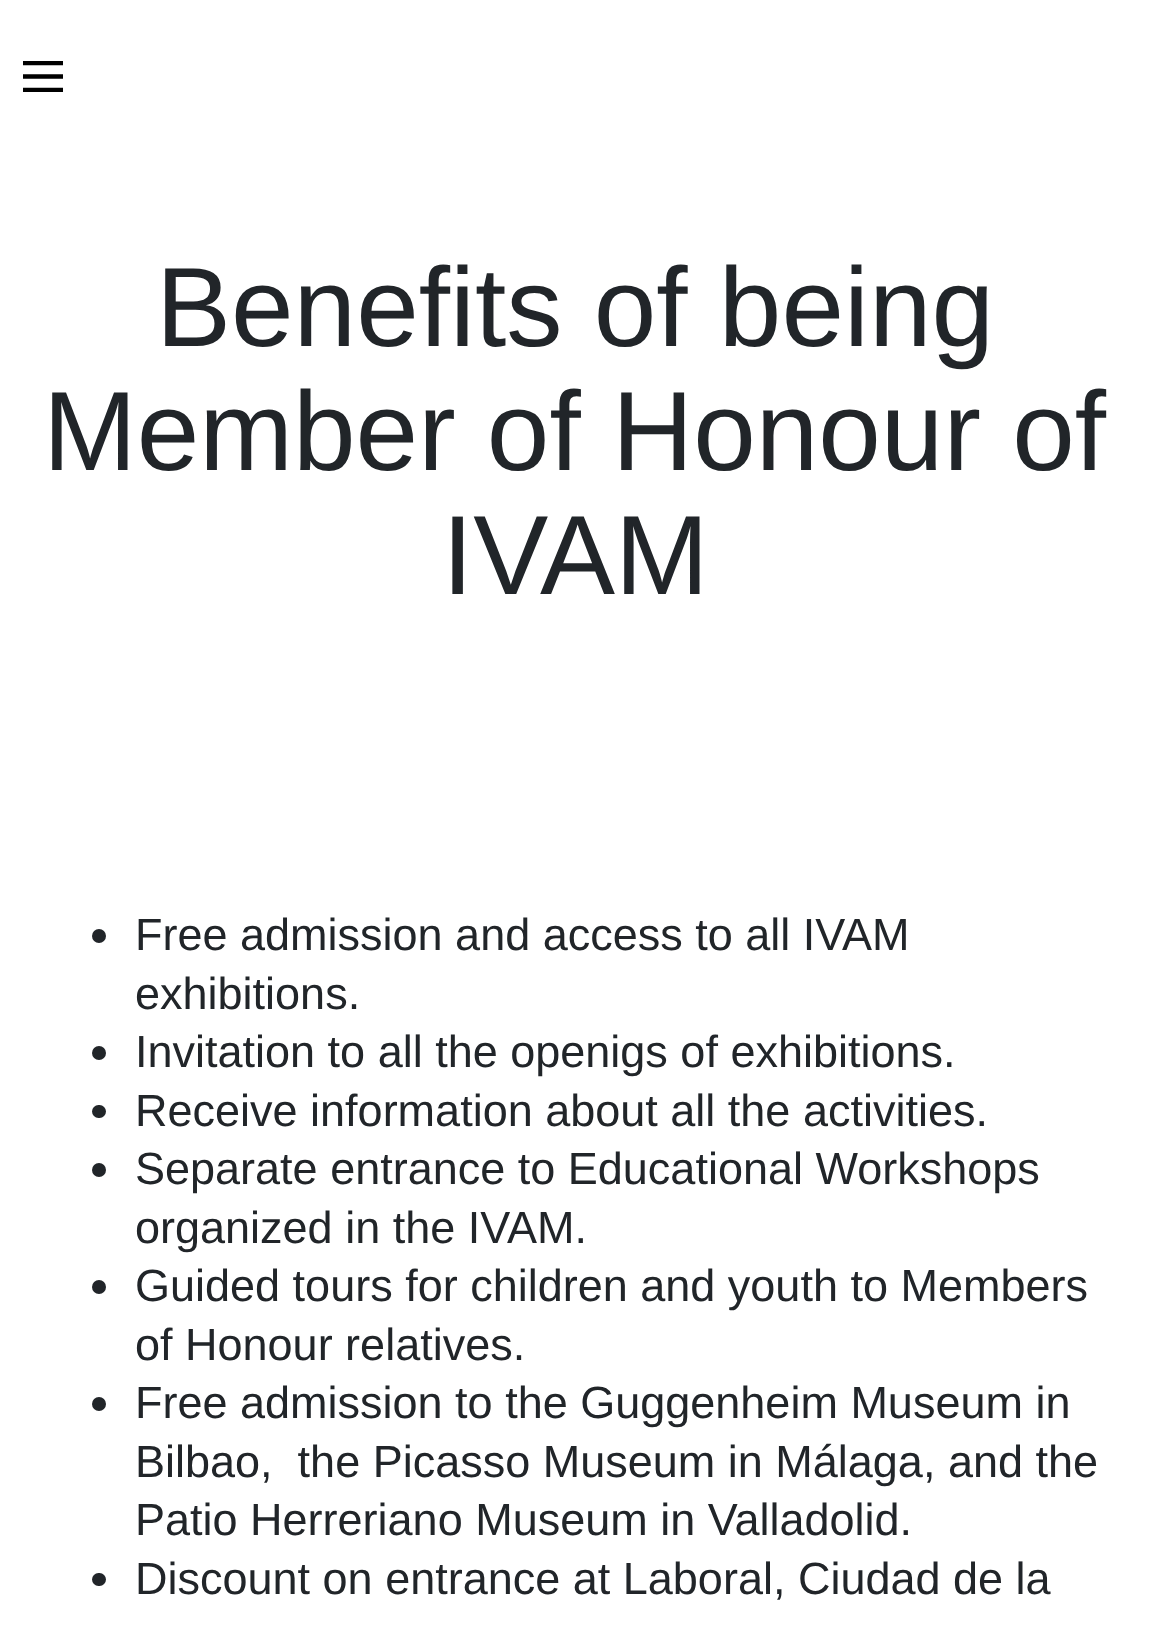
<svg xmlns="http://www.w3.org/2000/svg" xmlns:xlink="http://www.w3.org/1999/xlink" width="1149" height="1635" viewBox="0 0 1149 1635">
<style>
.cls-1{font:112.5px Liberation Sans;fill:#212529}
.cls-2{font:45px Liberation Sans;fill:#212529}
</style>
<rect width="100%" height="100%" fill="#ffffff"/>
<image xlink:href="image0.png" x="23" y="61" width="40" height="31"/>
<circle fill="#212529" cx="99" cy="936" r="7"/>
<circle fill="#212529" cx="99" cy="1053" r="7"/>
<rect fill="#212529" x="92" y="1105" width="14" height="13" rx="6.5"/>
<circle fill="#212529" cx="99" cy="1170" r="7"/>
<circle fill="#212529" cx="99" cy="1287" r="7"/>
<circle fill="#212529" cx="99" cy="1404" r="7"/>
<rect fill="#212529" x="92" y="1573" width="14" height="13" rx="6.5"/>
<text class="cls-1" x="156" y="346">Benefits of being</text>
<text class="cls-1" x="43" y="470">Member of Honour of</text>
<text class="cls-1" x="442" y="594">IVAM</text>
<text class="cls-2" xml:space="preserve"><tspan x="135" y="950">Free admission and access to all IVAM</tspan><tspan x="135" y="1009">exhibitions.</tspan><tspan x="135" y="1067">Invitation to all the openigs of exhibitions.</tspan><tspan x="135" y="1126">Receive information about all the activities.</tspan><tspan x="135" y="1184">Separate entrance to Educational Workshops</tspan><tspan x="135" y="1243">organized in the IVAM.</tspan><tspan x="135" y="1301">Guided tours for children and youth to Members</tspan><tspan x="135" y="1360">of Honour relatives.</tspan><tspan x="135" y="1418">Free admission to the Guggenheim Museum in</tspan><tspan x="135" y="1477">Bilbao,  the Picasso Museum in Málaga, and the</tspan><tspan x="135" y="1535">Patio Herreriano Museum in Valladolid.</tspan><tspan x="135" y="1594">Discount on entrance at Laboral, Ciudad de la</tspan></text>
</svg>
